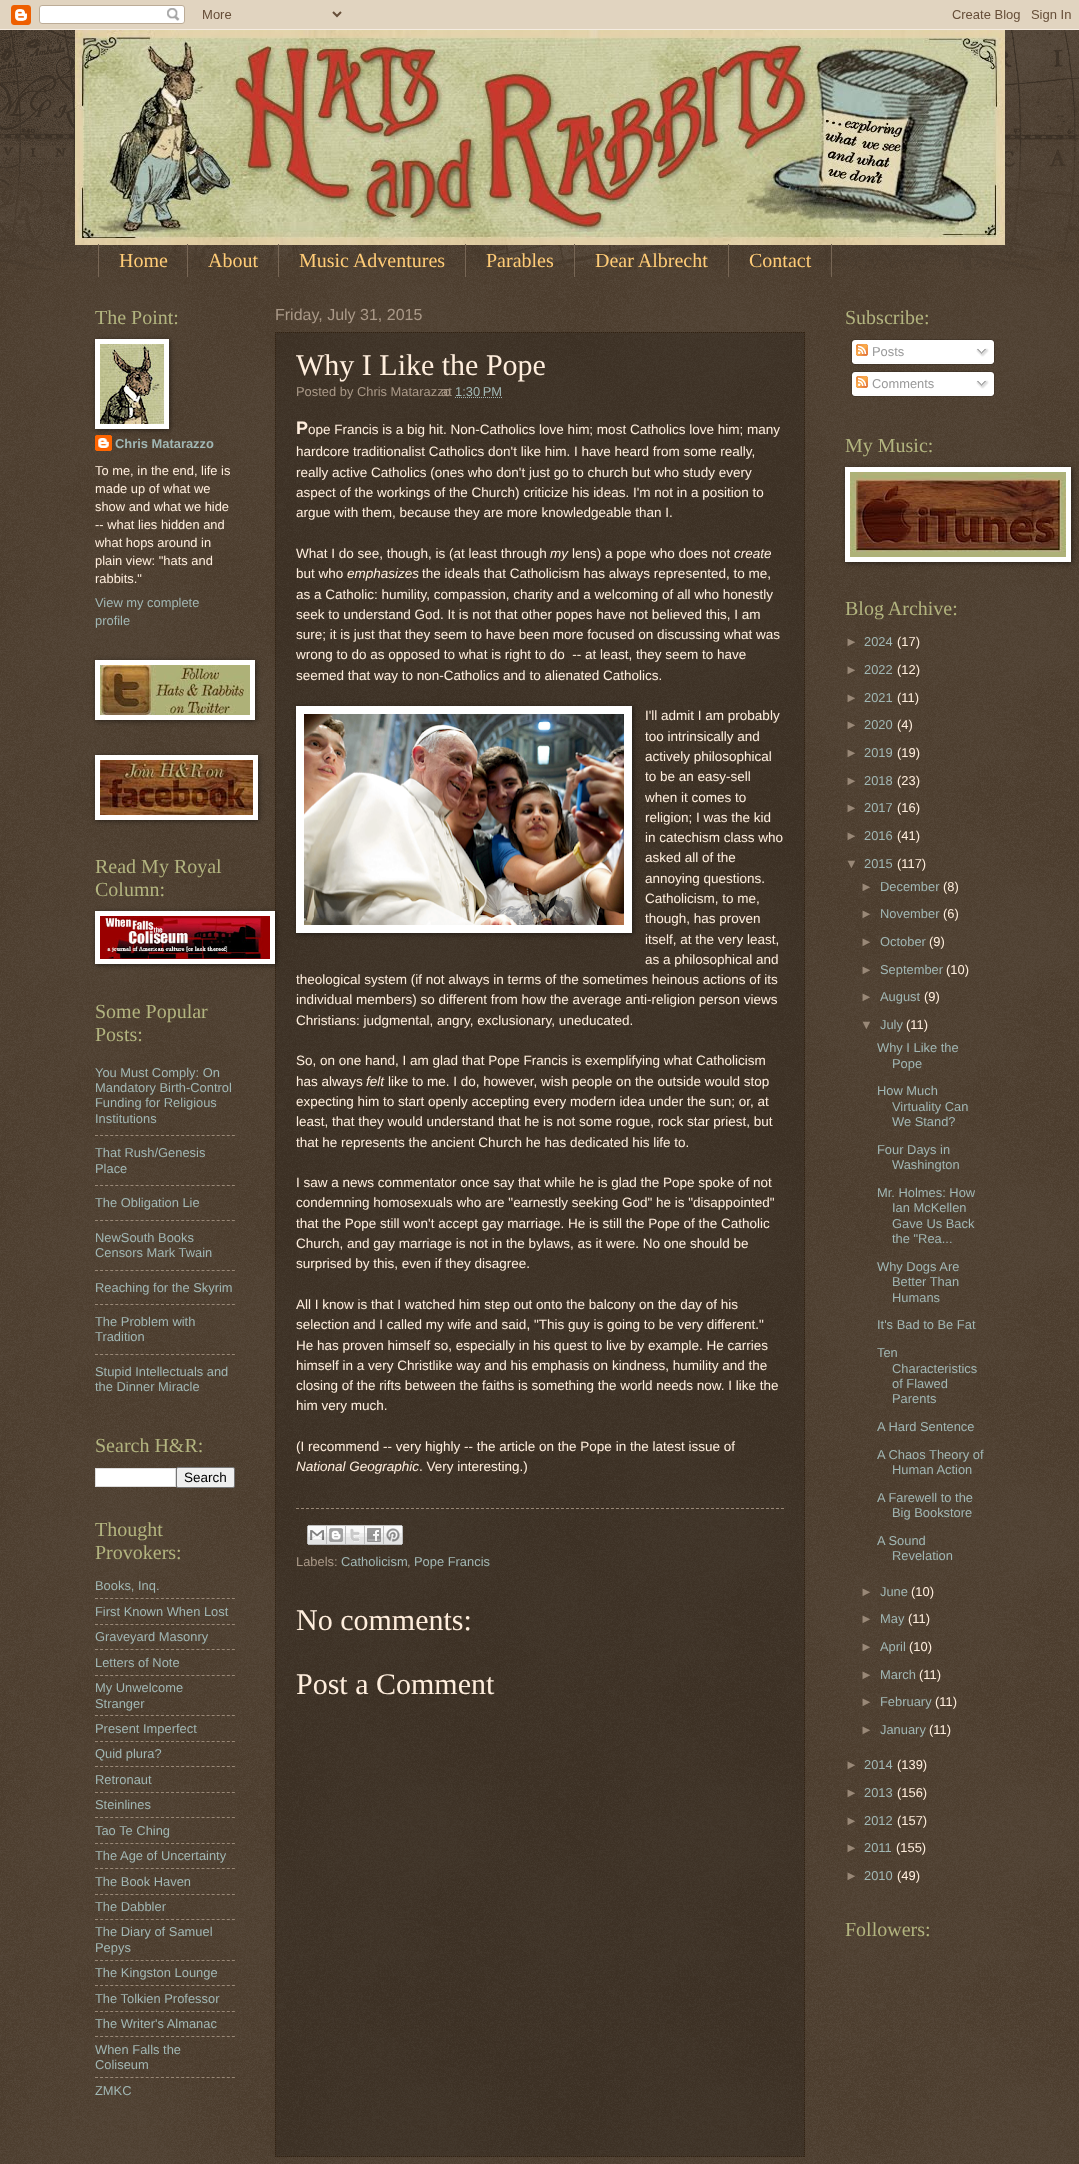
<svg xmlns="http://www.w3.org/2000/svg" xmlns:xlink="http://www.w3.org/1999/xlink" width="1079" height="2164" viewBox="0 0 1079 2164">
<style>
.cls-1{font:20px Liberation Serif;fill:#ffcc77}
.cls-2{font:20px Liberation Serif;fill:#b2b47f}
.cls-3{font:bold 12.9px Liberation Sans;fill:#a1b7b4}
.cls-4{font:12.9px Liberation Sans;fill:#ffeedd}
.cls-5{font:12.9px Liberation Sans;fill:#a1b7b4}
.cls-6{font:13.5px Liberation Sans;fill:#000000}
.cls-7{font:16px Liberation Sans;fill:#aa9988}
.cls-8{font:30px Liberation Serif;fill:#ffeedd}
.cls-9{font:12.9px Liberation Sans;fill:#aa9988}
.cls-10{font:bold 18px Liberation Sans;fill:#ffeedd}
.cls-11{font:13.5px Liberation Sans;fill:#ffeedd}
.cls-12{font:italic 13.5px Liberation Sans;fill:#ffeedd}
.cls-13{font:12.9px Liberation Sans;fill:#999999}
.cls-14{font:12.9px Liberation Sans;fill:#998877}
</style>
<rect width="100%" height="100%" fill="#332211"/>
<image xlink:href="image0.png" x="0" y="30" width="1079" height="2134"/>
<image xlink:href="image1.png" x="0" y="0" width="1079" height="30"/>
<image xlink:href="image2.png" x="0" y="30" width="1079" height="240"/>
<image xlink:href="image3.png" x="75" y="30" width="930" height="215"/>
<rect fill="#776655" x="187" y="244" width="1" height="33"/>
<rect fill="#776655" x="98" y="244" width="1" height="33"/>
<rect fill="#776655" x="278" y="244" width="1" height="33"/>
<rect fill="#776655" x="465" y="244" width="1" height="33"/>
<rect fill="#776655" x="574" y="244" width="1" height="33"/>
<rect fill="#776655" x="728" y="244" width="1" height="33"/>
<rect fill="#776655" x="831" y="244" width="1" height="33"/>
<image xlink:href="image5.png" x="95" y="435" width="17" height="16"/>
<rect fill="#000000" fill-opacity="0.5" filter="blur(2.5px)" x="96" y="340" width="74" height="90"/>
<rect fill="#ffffff" x="95" y="339" width="74" height="90"/>
<image xlink:href="image4.png" x="100" y="344" width="64" height="80"/>
<rect fill="#000000" fill-opacity="0.5" filter="blur(2.5px)" x="96" y="661" width="160" height="60"/>
<rect fill="#ffffff" x="95" y="660" width="160" height="60"/>
<image xlink:href="image6.png" x="100" y="665" width="150" height="50"/>
<rect fill="#000000" fill-opacity="0.5" filter="blur(2.5px)" x="96" y="756" width="163" height="65"/>
<rect fill="#ffffff" x="95" y="755" width="163" height="65"/>
<image xlink:href="image7.png" x="100" y="760" width="153" height="55"/>
<rect fill="#000000" fill-opacity="0.2" x="275" y="332" width="530" height="1825"/>
<path fill="none" stroke="#332211" stroke-dasharray="1 1" d="M275 332.5H805"/>
<path fill="none" stroke="#332211" stroke-dasharray="1 1" d="M275 2156.5H805"/>
<path fill="none" stroke="#332211" stroke-dasharray="1 1" d="M275.5 332V2157"/>
<rect fill="#000000" fill-opacity="0.5" filter="blur(2.5px)" x="96" y="912" width="180" height="53"/>
<rect fill="#ffffff" x="95" y="911" width="180" height="53"/>
<image xlink:href="image8.png" x="100" y="916" width="170" height="43"/>
<path fill="none" stroke="#998877" stroke-dasharray="3 2.07" d="M95 1135.5H235"/>
<path fill="none" stroke="#998877" stroke-dasharray="3 2.07" d="M95 1185.5H235"/>
<path fill="none" stroke="#998877" stroke-dasharray="3 2.07" d="M95 1220.5H235"/>
<path fill="none" stroke="#998877" stroke-dasharray="3 2.07" d="M95 1270.5H235"/>
<path fill="none" stroke="#998877" stroke-dasharray="3 2.07" d="M95 1304.5H235"/>
<path fill="none" stroke="#998877" stroke-dasharray="3 2.07" d="M95 1354.5H235"/>
<rect fill="#ffffff" stroke="#dddddd" x="95.5" y="1468.5" width="80" height="18"/>
<rect fill="#efefef" stroke="#767676" x="176.5" y="1467.5" width="58" height="20" rx="1.5"/>
<path fill="none" stroke="#998877" stroke-dasharray="3 2.07" d="M95 1598.5H235"/>
<path fill="none" stroke="#998877" stroke-dasharray="3 2.07" d="M95 1624.5H235"/>
<path fill="none" stroke="#998877" stroke-dasharray="3 2.07" d="M95 1649.5H235"/>
<path fill="none" stroke="#998877" stroke-dasharray="3 2.07" d="M95 1675.5H235"/>
<path fill="none" stroke="#998877" stroke-dasharray="3 2.07" d="M95 1715.5H235"/>
<path fill="none" stroke="#998877" stroke-dasharray="3 2.07" d="M95 1741.5H235"/>
<path fill="none" stroke="#998877" stroke-dasharray="3 2.07" d="M95 1766.5H235"/>
<path fill="none" stroke="#998877" stroke-dasharray="3 2.07" d="M95 1792.5H235"/>
<path fill="none" stroke="#998877" stroke-dasharray="3 2.07" d="M95 1817.5H235"/>
<path fill="none" stroke="#998877" stroke-dasharray="3 2.07" d="M95 1843.5H235"/>
<path fill="none" stroke="#998877" stroke-dasharray="3 2.07" d="M95 1868.5H235"/>
<path fill="none" stroke="#998877" stroke-dasharray="3 2.07" d="M95 1894.5H235"/>
<path fill="none" stroke="#998877" stroke-dasharray="3 2.07" d="M95 1919.5H235"/>
<path fill="none" stroke="#998877" stroke-dasharray="3 2.07" d="M95 1960.5H235"/>
<path fill="none" stroke="#998877" stroke-dasharray="3 2.07" d="M95 1985.5H235"/>
<path fill="none" stroke="#998877" stroke-dasharray="3 2.07" d="M95 2011.5H235"/>
<path fill="none" stroke="#998877" stroke-dasharray="3 2.07" d="M95 2036.5H235"/>
<path fill="none" stroke="#998877" stroke-dasharray="3 2.07" d="M95 2077.5H235"/>
<path fill="none" stroke="#332211" stroke-dasharray="1 1" d="M804.5 332V2157"/>
<path fill="none" stroke="#a1b7b4" stroke-dasharray="1 1" d="M455 397.5H502"/>
<rect fill="#000000" fill-opacity="0.5" filter="blur(2.5px)" x="297" y="707" width="336" height="227"/>
<rect fill="#ffffff" x="296" y="706" width="336" height="227"/>
<image xlink:href="image9.png" x="304" y="714" width="320" height="211"/>
<path fill="none" stroke="#998877" stroke-dasharray="3 2" d="M296 1508.5H784"/>
<image xlink:href="image10.png" x="307" y="1525" width="20" height="20"/>
<image xlink:href="image11.png" x="327" y="1525" width="19" height="20"/>
<image xlink:href="image12.png" x="346" y="1525" width="19" height="20"/>
<image xlink:href="image13.png" x="365" y="1525" width="19" height="20"/>
<image xlink:href="image14.png" x="384" y="1525" width="19" height="20"/>
<image xlink:href="image15.png" x="851" y="339" width="144" height="23"/>
<image xlink:href="image16.png" x="856" y="344" width="12" height="12"/>
<image xlink:href="image17.png" x="976" y="348" width="13" height="9"/>
<image xlink:href="image18.png" x="851" y="362" width="144" height="3"/>
<image xlink:href="image19.png" x="851" y="371" width="144" height="23"/>
<image xlink:href="image16.png" x="856" y="376" width="12" height="12"/>
<image xlink:href="image17.png" x="976" y="380" width="13" height="9"/>
<image xlink:href="image20.png" x="851" y="394" width="144" height="3"/>
<rect fill="#000000" fill-opacity="0.5" filter="blur(2.5px)" x="846" y="468" width="226" height="95"/>
<rect fill="#ffffff" x="845" y="467" width="226" height="95"/>
<image xlink:href="image21.png" x="850" y="472" width="216" height="85"/>
<text class="cls-1" x="119" y="267">Home</text>
<text class="cls-1" x="208" y="267">About</text>
<text class="cls-1" x="299" y="267">Music Adventures</text>
<text class="cls-1" x="486" y="267">Parables</text>
<text class="cls-1" x="595" y="267">Dear Albrecht</text>
<text class="cls-1" x="749" y="267">Contact</text>
<text class="cls-2" x="95" y="324">The Point:</text>
<text class="cls-3" x="115" y="448">Chris Matarazzo</text>
<text class="cls-4"><tspan x="95" y="475">To me, in the end, life is</tspan><tspan x="95" y="493">made up of what we</tspan><tspan x="95" y="511">show and what we hide</tspan><tspan x="95" y="529">-- what lies hidden and</tspan><tspan x="95" y="547">what hops around in</tspan><tspan x="95" y="565">plain view: "hats and</tspan><tspan x="95" y="583">rabbits."</tspan></text>
<text class="cls-5"><tspan x="95" y="607">View my complete</tspan><tspan x="95" y="625">profile</tspan></text>
<text class="cls-2"><tspan x="95" y="873">Read My Royal</tspan><tspan x="95" y="896">Column:</tspan></text>
<text class="cls-2"><tspan x="95" y="1018">Some Popular</tspan><tspan x="95" y="1041">Posts:</tspan></text>
<text class="cls-5"><tspan x="95" y="1077">You Must Comply: On</tspan><tspan x="95" y="1092">Mandatory Birth-Control</tspan><tspan x="95" y="1107">Funding for Religious</tspan><tspan x="95" y="1123">Institutions</tspan></text>
<text class="cls-5"><tspan x="95" y="1157">That Rush/Genesis</tspan><tspan x="95" y="1173">Place</tspan></text>
<text class="cls-5" x="95" y="1207">The Obligation Lie</text>
<text class="cls-5"><tspan x="95" y="1242">NewSouth Books</tspan><tspan x="95" y="1257">Censors Mark Twain</tspan></text>
<text class="cls-5" x="95" y="1292">Reaching for the Skyrim</text>
<text class="cls-5"><tspan x="95" y="1326">The Problem with</tspan><tspan x="95" y="1341">Tradition</tspan></text>
<text class="cls-5"><tspan x="95" y="1376">Stupid Intellectuals and</tspan><tspan x="95" y="1391">the Dinner Miracle</tspan></text>
<text class="cls-2" x="95" y="1452">Search H&amp;R:</text>
<text class="cls-6" x="184" y="1482">Search</text>
<text class="cls-2"><tspan x="95" y="1536">Thought</tspan><tspan x="95" y="1559">Provokers:</tspan></text>
<text class="cls-5" x="95" y="1590">Books, Inq.</text>
<text class="cls-5"><tspan x="95" y="1616">First Known When Lost</tspan><tspan x="95" y="1641">Graveyard Masonry</tspan></text>
<text class="cls-5"><tspan x="95" y="1667">Letters of Note</tspan><tspan x="95" y="1692">My Unwelcome</tspan><tspan x="95" y="1708">Stranger</tspan><tspan x="95" y="1733">Present Imperfect</tspan><tspan x="95" y="1758">Quid plura?</tspan></text>
<text class="cls-5"><tspan x="95" y="1784">Retronaut</tspan><tspan x="95" y="1809">Steinlines</tspan></text>
<text class="cls-5"><tspan x="95" y="1835">Tao Te Ching</tspan><tspan x="95" y="1860">The Age of Uncertainty</tspan></text>
<text class="cls-5"><tspan x="95" y="1886">The Book Haven</tspan><tspan x="95" y="1911">The Dabbler</tspan><tspan x="95" y="1936">The Diary of Samuel</tspan><tspan x="95" y="1952">Pepys</tspan><tspan x="95" y="1977">The Kingston Lounge</tspan></text>
<text class="cls-5"><tspan x="95" y="2003">The Tolkien Professor</tspan><tspan x="95" y="2028">The Writer's Almanac</tspan></text>
<text class="cls-5"><tspan x="95" y="2054">When Falls the</tspan><tspan x="95" y="2069">Coliseum</tspan></text>
<text class="cls-5" x="95" y="2095">ZMKC</text>
<text class="cls-7" x="275" y="320">Friday, July 31, 2015</text>
<text class="cls-8" x="296" y="375">Why I Like the Pope</text>
<text class="cls-9" x="296" y="396">Posted by Chris Matarazzo</text>
<text class="cls-9" x="441" y="396">at</text>
<text class="cls-5" x="455" y="396">1:30 PM</text>
<text class="cls-10" x="296" y="434">P</text>
<text class="cls-11" x="308" y="434">ope Francis is a big hit. Non-Catholics love him; most Catholics love him; many</text>
<text class="cls-11"><tspan x="296" y="456">hardcore traditionalist Catholics don't like him. I have heard from some really,</tspan><tspan x="296" y="477">really active Catholics (ones who don't just go to church but who study every</tspan><tspan x="296" y="497">aspect of the workings of the Church) criticize his ideas. I'm not in a position to</tspan><tspan x="296" y="517">argue with them, because they are more knowledgeable than I.</tspan></text>
<text class="cls-11" x="296" y="558">What I do see, though, is (at least through</text>
<text class="cls-12" x="550" y="558">my</text>
<text class="cls-11" x="572" y="558">lens) a pope who does not</text>
<text class="cls-12" x="734" y="558">create</text>
<text class="cls-11" x="296" y="578">but who</text>
<text class="cls-12" x="347" y="578">emphasizes</text>
<text class="cls-11" x="422" y="578">the ideals that Catholicism has always represented, to me,</text>
<text class="cls-11" xml:space="preserve"><tspan x="296" y="599">as a Catholic: humility, compassion, charity and a welcoming of all who honestly</tspan><tspan x="296" y="619">seek to understand God. It is not that other popes have not believed this, I am</tspan><tspan x="296" y="639">sure; it is just that they seem to have been more focused on discussing what was</tspan><tspan x="296" y="659">wrong to do as opposed to what is right to do  -- at least, they seem to have</tspan><tspan x="296" y="680">seemed that way to non-Catholics and to alienated Catholics.</tspan></text>
<text class="cls-11"><tspan x="645" y="720">I'll admit I am probably</tspan><tspan x="645" y="741">too intrinsically and</tspan><tspan x="645" y="761">actively philosophical</tspan><tspan x="645" y="781">to be an easy-sell</tspan><tspan x="645" y="802">when it comes to</tspan><tspan x="645" y="822">religion; I was the kid</tspan><tspan x="645" y="842">in catechism class who</tspan><tspan x="645" y="862">asked all of the</tspan><tspan x="645" y="883">annoying questions.</tspan><tspan x="645" y="903">Catholicism, to me,</tspan><tspan x="645" y="923">though, has proven</tspan><tspan x="645" y="944">itself, at the very least,</tspan><tspan x="645" y="964">as a philosophical and</tspan></text>
<text class="cls-11"><tspan x="296" y="984">theological system (if not always in terms of the sometimes heinous actions of its</tspan><tspan x="296" y="1004">individual members) so different from how the average anti-religion person views</tspan><tspan x="296" y="1025">Christians: judgmental, angry, exclusionary, uneducated.</tspan></text>
<text class="cls-11"><tspan x="296" y="1065">So, on one hand, I am glad that Pope Francis is exemplifying what Catholicism</tspan><tspan x="296" y="1086">has always</tspan></text>
<text class="cls-12" x="366" y="1086">felt</text>
<text class="cls-11" x="388" y="1086">like to me. I do, however, wish people on the outside would stop</text>
<text class="cls-11"><tspan x="296" y="1106">expecting him to start openly accepting every modern idea under the sun; or, at</tspan><tspan x="296" y="1126">least, that they would understand that he is not some rogue, rock star priest, but</tspan><tspan x="296" y="1147">that he represents the ancient Church he has dedicated his life to.</tspan></text>
<text class="cls-11"><tspan x="296" y="1187">I saw a news commentator once say that while he is glad the Pope spoke of not</tspan><tspan x="296" y="1207">condemning homosexuals who are "earnestly seeking God" he is "disappointed"</tspan><tspan x="296" y="1228">that the Pope still won't accept gay marriage. He is still the Pope of the Catholic</tspan><tspan x="296" y="1248">Church, and gay marriage is not in the bylaws, as it were. No one should be</tspan><tspan x="296" y="1268">surprised by this, even if they disagree.</tspan></text>
<text class="cls-11"><tspan x="296" y="1309">All I know is that I watched him step out onto the balcony on the day of his</tspan><tspan x="296" y="1329">selection and I called my wife and said, "This guy is going to be very different."</tspan><tspan x="296" y="1350">He has proven himself so, especially in his quest to live by example. He carries</tspan><tspan x="296" y="1370">himself in a very Christlike way and his emphasis on kindness, humility and the</tspan><tspan x="296" y="1390">closing of the rifts between the faiths is something the world needs now. I like the</tspan><tspan x="296" y="1410">him very much.</tspan></text>
<text class="cls-11" x="296" y="1451">(I recommend -- very highly -- the article on the Pope in the latest issue of</text>
<text class="cls-12" x="296" y="1471">National Geographic</text>
<text class="cls-11" x="419" y="1471">. Very interesting.)</text>
<text class="cls-9" x="296" y="1566">Labels:</text>
<text class="cls-5" x="341" y="1566">Catholicism</text>
<text class="cls-9" x="407" y="1566">,</text>
<text class="cls-5" x="414" y="1566">Pope Francis</text>
<text class="cls-8" x="296" y="1630">No comments:</text>
<text class="cls-8" x="296" y="1694">Post a Comment</text>
<text class="cls-2" x="845" y="324">Subscribe:</text>
<text class="cls-13" x="872" y="356">Posts</text>
<text class="cls-13" x="872" y="388">Comments</text>
<text class="cls-2" x="845" y="452">My Music:</text>
<text class="cls-2" x="845" y="615">Blog Archive:</text>
<text class="cls-14" x="845" y="646">►</text>
<text class="cls-5" x="864" y="646">2024</text>
<text class="cls-4" x="897" y="646">(17)</text>
<text class="cls-14" x="845" y="674">►</text>
<text class="cls-5" x="864" y="674">2022</text>
<text class="cls-4" x="897" y="674">(12)</text>
<text class="cls-14" x="845" y="702">►</text>
<text class="cls-5" x="864" y="702">2021</text>
<text class="cls-4" x="897" y="702">(11)</text>
<text class="cls-14" x="845" y="729">►</text>
<text class="cls-5" x="864" y="729">2020</text>
<text class="cls-4" x="897" y="729">(4)</text>
<text class="cls-14" x="845" y="757">►</text>
<text class="cls-5" x="864" y="757">2019</text>
<text class="cls-4" x="897" y="757">(19)</text>
<text class="cls-14" x="845" y="785">►</text>
<text class="cls-5" x="864" y="785">2018</text>
<text class="cls-4" x="897" y="785">(23)</text>
<text class="cls-14" x="845" y="812">►</text>
<text class="cls-5" x="864" y="812">2017</text>
<text class="cls-4" x="897" y="812">(16)</text>
<text class="cls-14" x="845" y="840">►</text>
<text class="cls-5" x="864" y="840">2016</text>
<text class="cls-4" x="897" y="840">(41)</text>
<text class="cls-14" x="845" y="868">▼</text>
<text class="cls-5" x="864" y="868">2015</text>
<text class="cls-4" x="897" y="868">(117)</text>
<text class="cls-14" x="860" y="891">►</text>
<text class="cls-5" x="880" y="891">December</text>
<text class="cls-4" x="943" y="891">(8)</text>
<text class="cls-14" x="860" y="918">►</text>
<text class="cls-5" x="880" y="918">November</text>
<text class="cls-4" x="943" y="918">(6)</text>
<text class="cls-14" x="860" y="946">►</text>
<text class="cls-5" x="880" y="946">October</text>
<text class="cls-4" x="929" y="946">(9)</text>
<text class="cls-14" x="860" y="974">►</text>
<text class="cls-5" x="880" y="974">September</text>
<text class="cls-4" x="946" y="974">(10)</text>
<text class="cls-14" x="860" y="1001">►</text>
<text class="cls-5" x="880" y="1001">August</text>
<text class="cls-4" x="924" y="1001">(9)</text>
<text class="cls-14" x="860" y="1029">▼</text>
<text class="cls-5" x="880" y="1029">July</text>
<text class="cls-4" x="906" y="1029">(11)</text>
<text class="cls-5" x="877" y="1052">Why I Like the</text>
<text class="cls-5" x="892" y="1068">Pope</text>
<text class="cls-5" x="877" y="1095">How Much</text>
<text class="cls-5"><tspan x="892" y="1111">Virtuality Can</tspan><tspan x="892" y="1126">We Stand?</tspan></text>
<text class="cls-5" x="877" y="1154">Four Days in</text>
<text class="cls-5" x="892" y="1169">Washington</text>
<text class="cls-5" x="877" y="1197">Mr. Holmes: How</text>
<text class="cls-5"><tspan x="892" y="1212">Ian McKellen</tspan><tspan x="892" y="1228">Gave Us Back</tspan><tspan x="892" y="1243">the "Rea...</tspan></text>
<text class="cls-5" x="877" y="1271">Why Dogs Are</text>
<text class="cls-5"><tspan x="892" y="1286">Better Than</tspan><tspan x="892" y="1302">Humans</tspan></text>
<text class="cls-5" x="877" y="1329">It's Bad to Be Fat</text>
<text class="cls-5" x="877" y="1357">Ten</text>
<text class="cls-5"><tspan x="892" y="1373">Characteristics</tspan><tspan x="892" y="1388">of Flawed</tspan><tspan x="892" y="1403">Parents</tspan></text>
<text class="cls-5" x="877" y="1431">A Hard Sentence</text>
<text class="cls-5" x="877" y="1459">A Chaos Theory of</text>
<text class="cls-5" x="892" y="1474">Human Action</text>
<text class="cls-5" x="877" y="1502">A Farewell to the</text>
<text class="cls-5" x="892" y="1517">Big Bookstore</text>
<text class="cls-5" x="877" y="1545">A Sound</text>
<text class="cls-5" x="892" y="1560">Revelation</text>
<text class="cls-14" x="860" y="1596">►</text>
<text class="cls-5" x="880" y="1596">June</text>
<text class="cls-4" x="911" y="1596">(10)</text>
<text class="cls-14" x="860" y="1623">►</text>
<text class="cls-5" x="880" y="1623">May</text>
<text class="cls-4" x="908" y="1623">(11)</text>
<text class="cls-14" x="860" y="1651">►</text>
<text class="cls-5" x="880" y="1651">April</text>
<text class="cls-4" x="909" y="1651">(10)</text>
<text class="cls-14" x="860" y="1679">►</text>
<text class="cls-5" x="880" y="1679">March</text>
<text class="cls-4" x="919" y="1679">(11)</text>
<text class="cls-14" x="860" y="1706">►</text>
<text class="cls-5" x="880" y="1706">February</text>
<text class="cls-4" x="935" y="1706">(11)</text>
<text class="cls-14" x="860" y="1734">►</text>
<text class="cls-5" x="880" y="1734">January</text>
<text class="cls-4" x="929" y="1734">(11)</text>
<text class="cls-14" x="845" y="1769">►</text>
<text class="cls-5" x="864" y="1769">2014</text>
<text class="cls-4" x="897" y="1769">(139)</text>
<text class="cls-14" x="845" y="1797">►</text>
<text class="cls-5" x="864" y="1797">2013</text>
<text class="cls-4" x="897" y="1797">(156)</text>
<text class="cls-14" x="845" y="1825">►</text>
<text class="cls-5" x="864" y="1825">2012</text>
<text class="cls-4" x="897" y="1825">(157)</text>
<text class="cls-14" x="845" y="1852">►</text>
<text class="cls-5" x="864" y="1852">2011</text>
<text class="cls-4" x="896" y="1852">(155)</text>
<text class="cls-14" x="845" y="1880">►</text>
<text class="cls-5" x="864" y="1880">2010</text>
<text class="cls-4" x="897" y="1880">(49)</text>
<text class="cls-2" x="845" y="1936">Followers:</text>
</svg>
